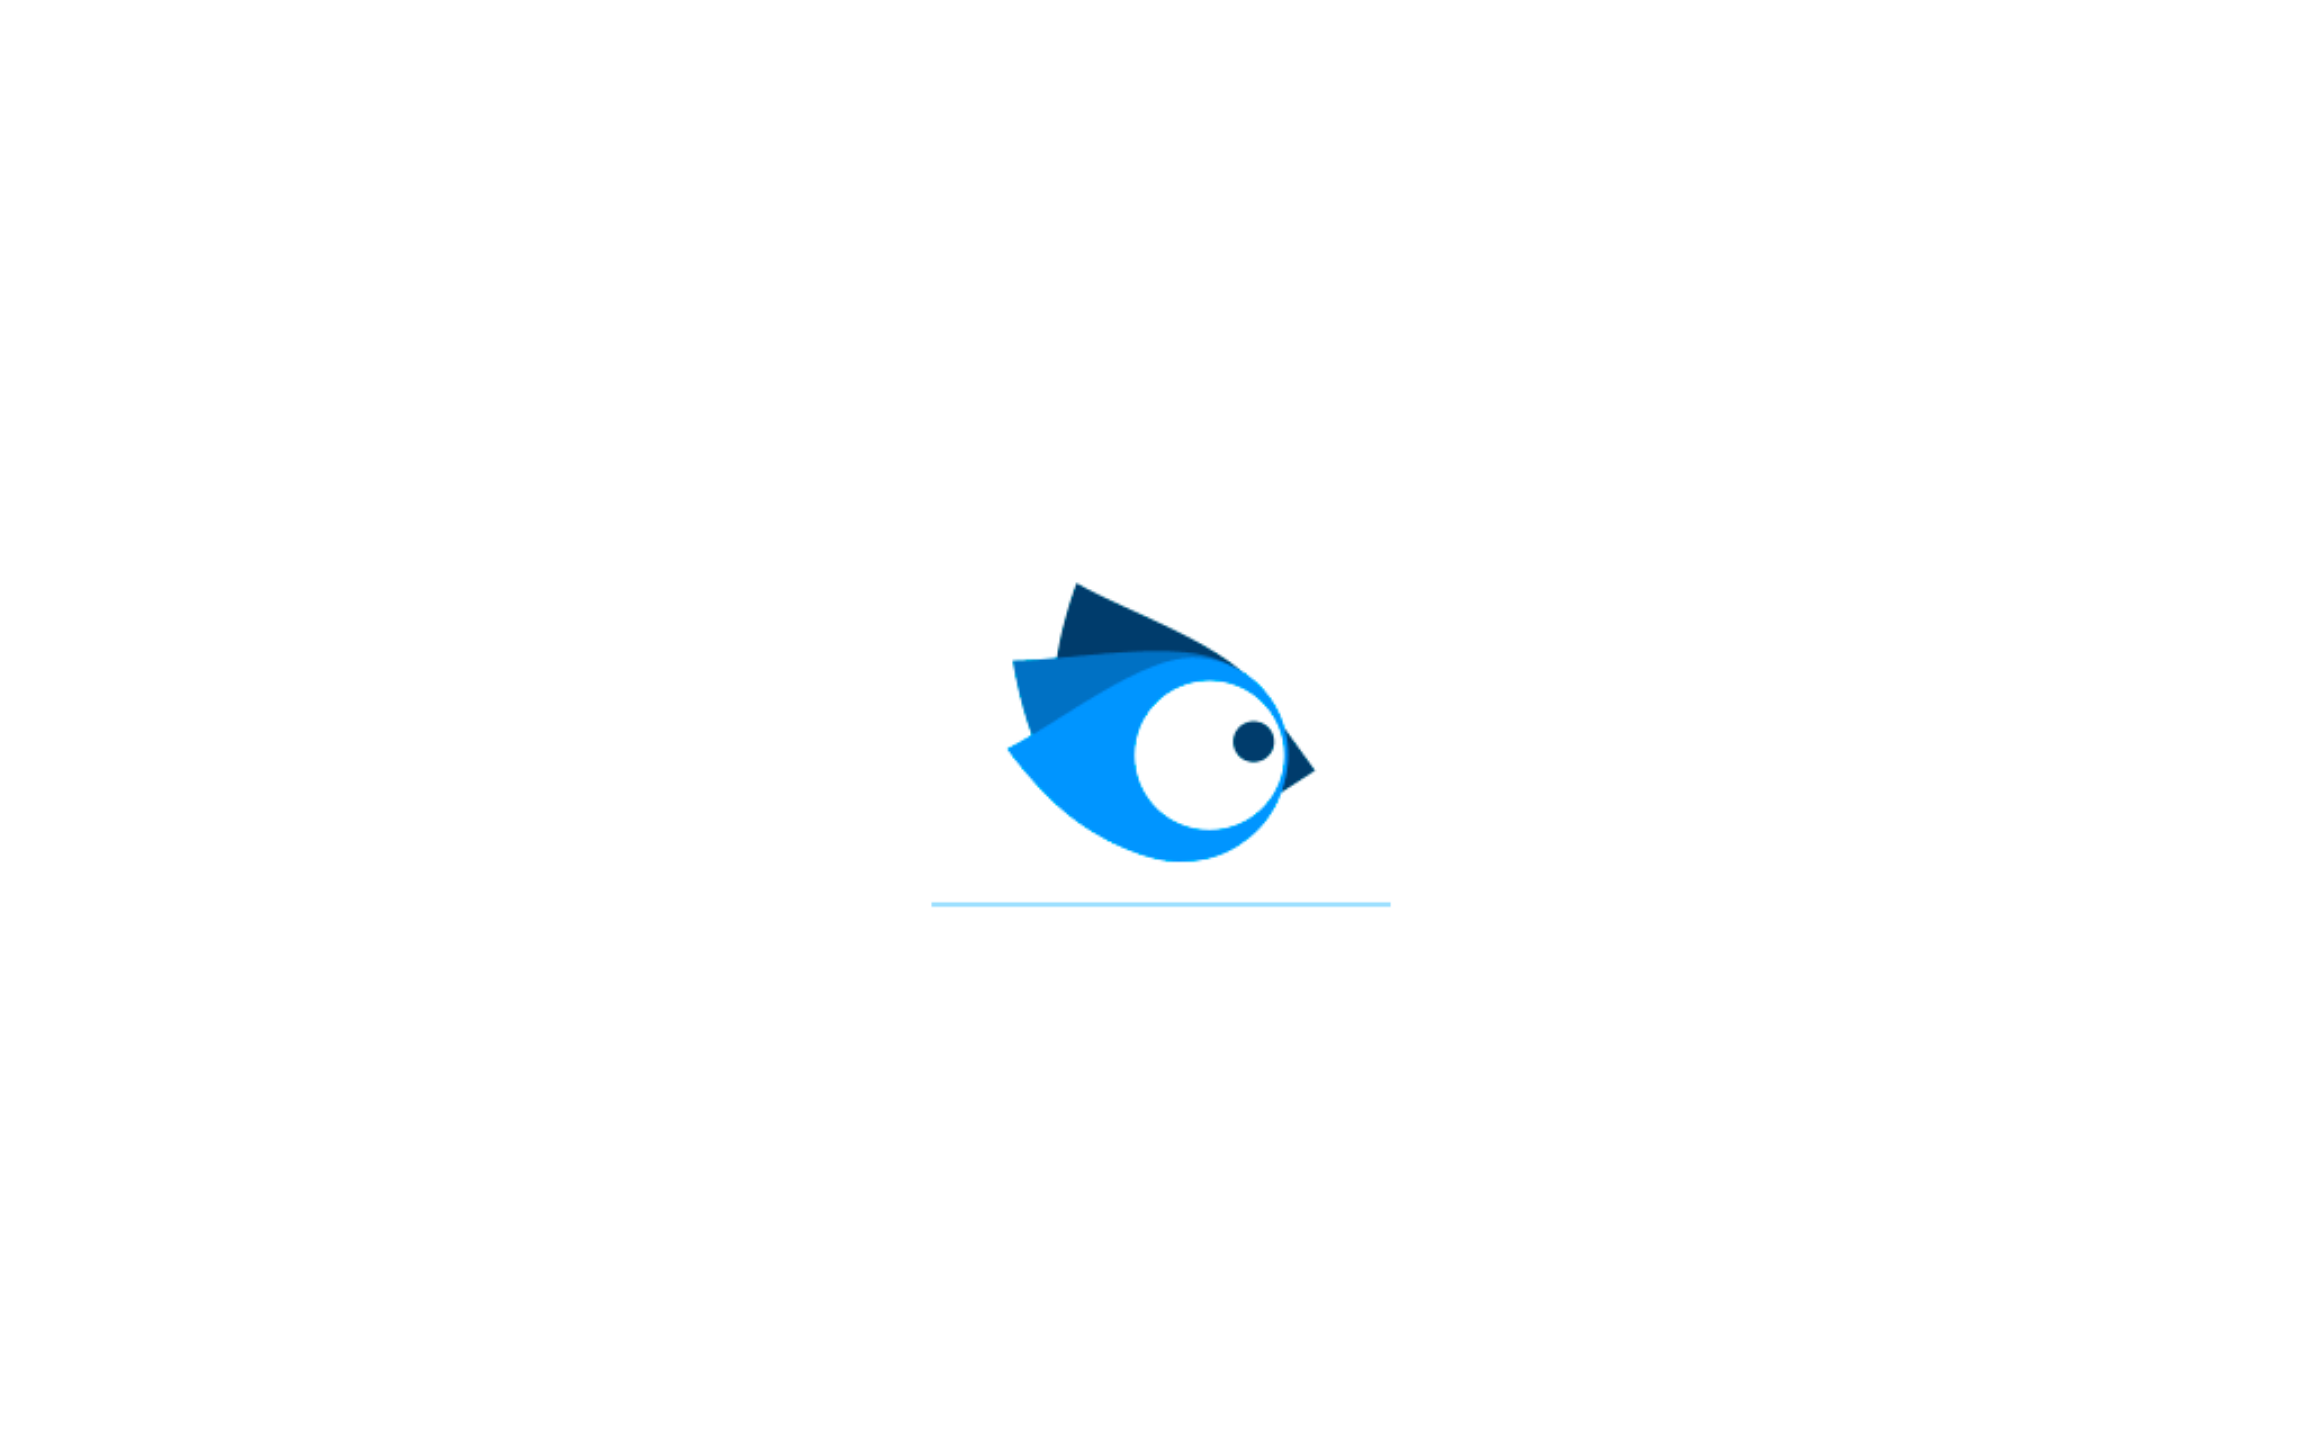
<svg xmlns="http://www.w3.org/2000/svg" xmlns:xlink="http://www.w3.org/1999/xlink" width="2321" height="1445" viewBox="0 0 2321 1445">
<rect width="100%" height="100%" fill="#ffffff"/>
<image xlink:href="image0.png" x="931" y="582" width="461" height="326"/>
</svg>
